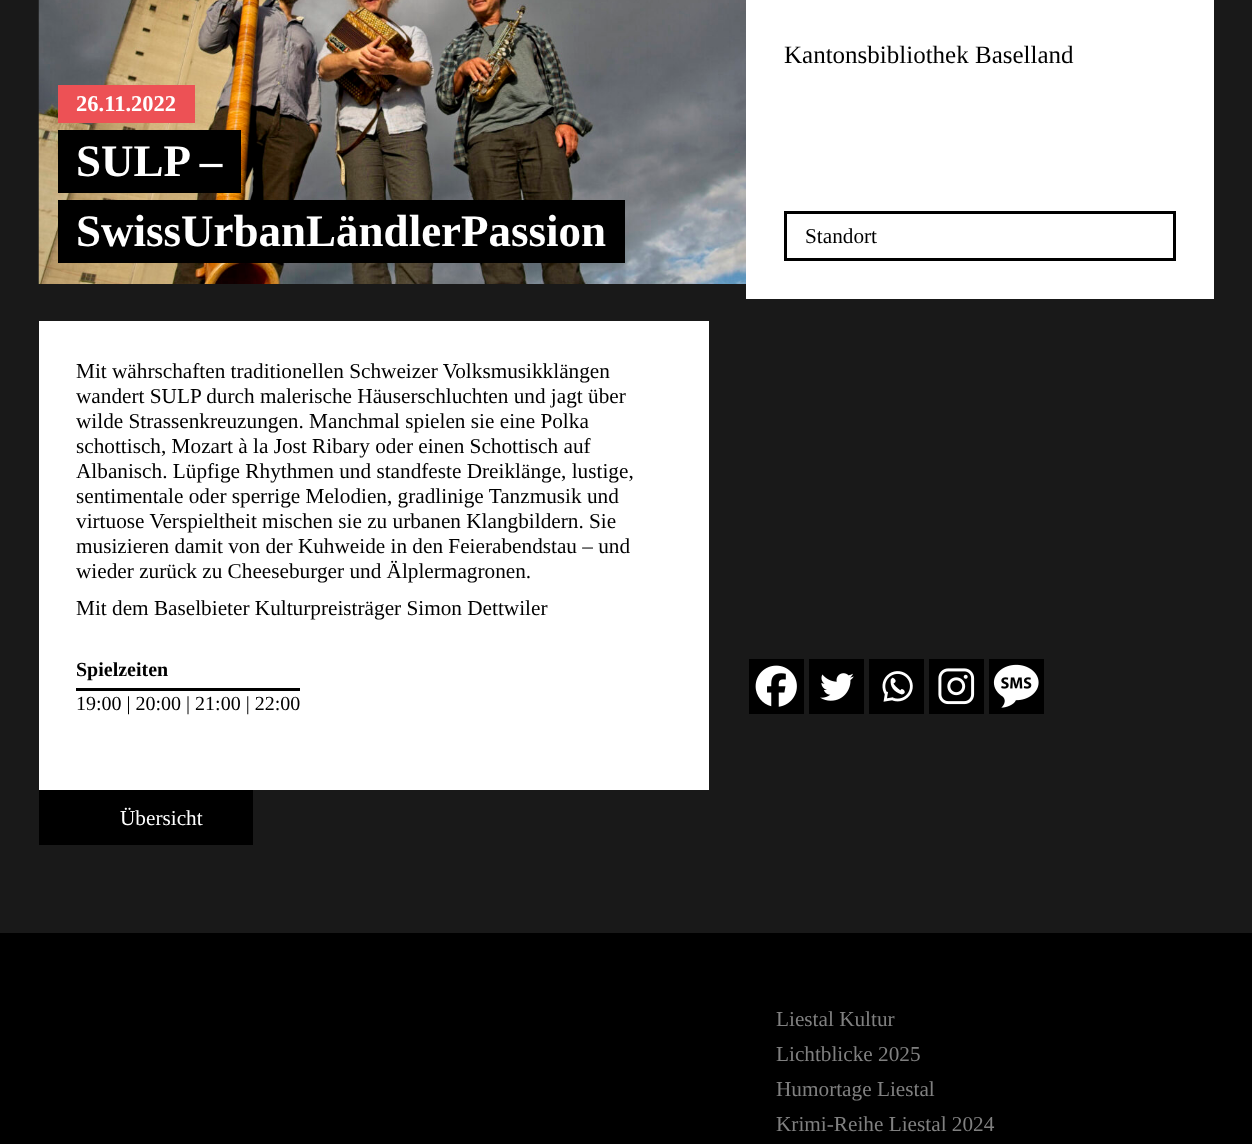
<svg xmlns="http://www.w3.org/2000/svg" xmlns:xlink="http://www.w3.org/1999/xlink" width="1252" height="1144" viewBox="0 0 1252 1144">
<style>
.cls-1{font:25px Liberation Serif;fill:#000000}
.cls-2{font:21.25px Liberation Serif;fill:#000000}
.cls-3{font:bold 20px Liberation Serif;fill:#000000}
.cls-4{font:20px Liberation Serif;fill:#000000}
.cls-5{font:21.25px Liberation Serif;fill:#ffffff}
.cls-6{font:21.25px Liberation Serif;fill:#808080}
.cls-7{font:bold 22.5px Liberation Serif;fill:#ffffff}
.cls-8{font:bold 45px Liberation Serif;fill:#ffffff}
</style>
<rect width="100%" height="100%" fill="#191919"/>
<rect fill="#ffffff" x="746" y="0" width="468" height="299"/>
<rect fill="none" stroke="#000000" stroke-width="3" x="785.5" y="212.5" width="389" height="47"/>
<rect fill="#000000" x="749" y="659" width="55" height="55"/>
<image xlink:href="image0.png" x="755" y="665" width="42" height="42"/>
<rect fill="#000000" x="809" y="659" width="55" height="55"/>
<image xlink:href="image1.png" x="820" y="673" width="34" height="28"/>
<rect fill="#000000" x="869" y="659" width="55" height="55"/>
<image xlink:href="image2.png" x="882" y="671" width="31" height="31"/>
<rect fill="#000000" x="929" y="659" width="55" height="55"/>
<image xlink:href="image3.png" x="938" y="668" width="37" height="37"/>
<rect fill="#000000" x="989" y="659" width="55" height="55"/>
<image xlink:href="image4.png" x="993" y="664" width="46" height="44"/>
<rect fill="#ffffff" x="39" y="321" width="670" height="469"/>
<rect fill="#000000" x="76" y="688" width="224" height="3"/>
<rect fill="#000000" x="39" y="790" width="214" height="55"/>
<rect fill="#000000" x="0" y="933" width="1252" height="211"/>
<image xlink:href="image5.png" x="38" y="0" width="708" height="284"/>
<path fill="#ed5155" d="M58 85V123H158V122H76V85Z"/>
<path fill="#ed5155" d="M95 122V123H195V85H176V122Z"/>
<rect fill="#ed5155" x="76" y="85" width="100" height="37"/>
<path fill="#000000" d="M58 130V193H204V192H76V130Z"/>
<path fill="#000000" d="M95 192V193H241V130H222V192Z"/>
<rect fill="#000000" x="76" y="130" width="146" height="62"/>
<path fill="#000000" d="M58 200V263H588V262H76V200Z"/>
<path fill="#000000" d="M95 262V263H625V200H606V262Z"/>
<rect fill="#000000" x="76" y="200" width="530" height="62"/>
<text class="cls-1" x="784" y="63">Kantonsbibliothek Baselland</text>
<text class="cls-2" x="805" y="243">Standort</text>
<text class="cls-2"><tspan x="76" y="378">Mit währschaften traditionellen Schweizer Volksmusikklängen</tspan><tspan x="76" y="403">wandert SULP durch malerische Häuserschluchten und jagt über</tspan><tspan x="76" y="428">wilde Strassenkreuzungen. Manchmal spielen sie eine Polka</tspan><tspan x="76" y="453">schottisch, Mozart à la Jost Ribary oder einen Schottisch auf</tspan><tspan x="76" y="478">Albanisch. Lüpfige Rhythmen und standfeste Dreiklänge, lustige,</tspan><tspan x="76" y="503">sentimentale oder sperrige Melodien, gradlinige Tanzmusik und</tspan><tspan x="76" y="528">virtuose Verspieltheit mischen sie zu urbanen Klangbildern. Sie</tspan><tspan x="76" y="553">musizieren damit von der Kuhweide in den Feierabendstau – und</tspan><tspan x="76" y="578">wieder zurück zu Cheeseburger und Älplermagronen.</tspan><tspan x="76" y="615">Mit dem Baselbieter Kulturpreisträger Simon Dettwiler</tspan></text>
<text class="cls-3" x="76" y="676">Spielzeiten</text>
<text class="cls-4" x="76" y="710">19:00 | 20:00 | 21:00 | 22:00</text>
<text class="cls-5" x="120" y="825">Übersicht</text>
<text class="cls-6"><tspan x="776" y="1026">Liestal Kultur</tspan><tspan x="776" y="1061">Lichtblicke 2025</tspan><tspan x="776" y="1096">Humortage Liestal</tspan><tspan x="776" y="1131">Krimi-Reihe Liestal 2024</tspan></text>
<text class="cls-7" x="76" y="111">26.11.2022</text>
<text class="cls-8"><tspan x="76" y="176">SULP –</tspan><tspan x="76" y="246">SwissUrbanLändlerPassion</tspan></text>
</svg>
